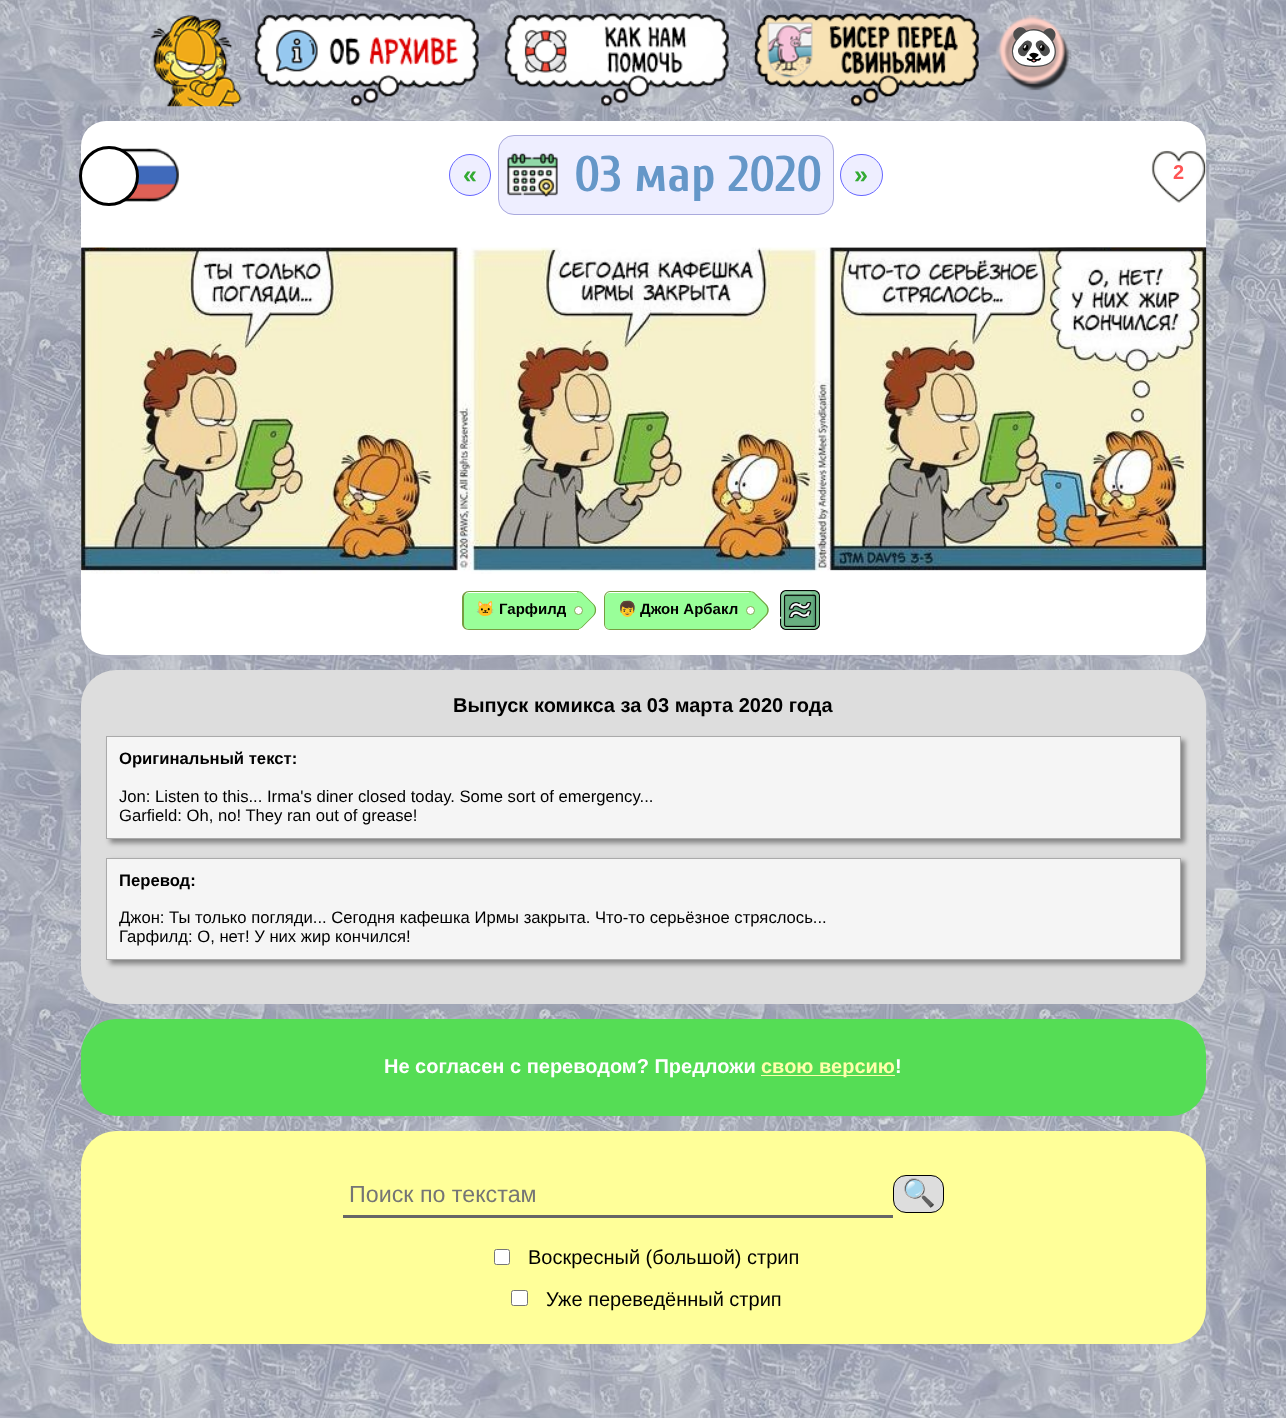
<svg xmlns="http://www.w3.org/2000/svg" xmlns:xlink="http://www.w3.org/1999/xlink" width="1286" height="1418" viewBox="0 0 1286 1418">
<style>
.cls-1{font:bold 40px Noto Color Emoji;fill:#000000}
.cls-2{font:bold 25px Liberation Sans;fill:#33aa33}
.cls-3{font:bold 50px Cuprum;fill:#6597c8}
.cls-4{font:bold 20px Liberation Sans;fill:#ff5555}
.cls-5{font:bold 15px Noto Color Emoji;fill:#000000}
.cls-6{font:bold 15px Liberation Sans;fill:#000000}
.cls-7{font:bold 20px Liberation Sans;fill:#000000}
.cls-8{font:bold 16.65px Liberation Sans;fill:#000000}
.cls-9{font:16.65px Liberation Sans;fill:#000000}
.cls-10{font:bold 20px Liberation Sans;fill:#ffffff}
.cls-11{font:bold 20px Liberation Sans;fill:#ffffaa}
.cls-12{font:23.25px Liberation Sans;fill:#757575}
.cls-13{font:27px Noto Color Emoji;fill:#000000}
.cls-14{font:20px Liberation Sans;fill:#000000}
</style>
<rect width="100%" height="100%" fill="#ffffff"/>
<image xlink:href="image0.png" x="0" y="0" width="1286" height="1418"/>
<image xlink:href="image1.png" x="150" y="14" width="92" height="93"/>
<image xlink:href="image2.png" x="253" y="12" width="226" height="95"/>
<image xlink:href="image3.png" x="503" y="12" width="226" height="95"/>
<image xlink:href="image4.png" x="753" y="12" width="227" height="95"/>
<image xlink:href="image5.png" x="996" y="15" width="76" height="76"/>
<rect fill="#ffffff" x="81" y="121" width="1125" height="534" rx="25"/>
<image xlink:href="image6.png" x="119" y="148" width="60" height="54"/>
<circle fill="#ffffff" stroke="#000000" stroke-width="3" cx="109" cy="176" r="28.5"/>
<circle fill="#eeeeff" stroke="#6666ff" cx="470" cy="175" r="20.5"/>
<rect fill="#eeeeff" x="498" y="135" width="336" height="80" rx="16"/>
<image xlink:href="image7.png" x="507" y="153" width="51" height="44"/>
<rect fill="none" stroke="#aaaadd" x="498.5" y="135.5" width="335" height="79" rx="15.5"/>
<rect fill="#eeeeff" stroke="#6666ff" x="840.5" y="154.5" width="42" height="41" rx="20.5"/>
<image xlink:href="image8.png" x="1151" y="150" width="55" height="53"/>
<image xlink:href="image9.png" x="81" y="247" width="1126" height="323"/>
<image xlink:href="image10.png" x="81" y="247" width="1126" height="327"/>
<path fill="#99ff99" d="M469 593H579V629H469C466 629 464 627 464 624V598C464 595 466 593 469 593Z"/>
<path fill="#769e42" fill-rule="evenodd" d="M469 591H579V630H469C465 630 462 627 462 624V598C462 594 465 591 469 591ZM469 592H579V629H469C466 629 464 627 464 624V598C464 595 466 592 469 592Z"/>
<path fill="#99ff99" d="M582 592.5L593.5 604C597 607 597 613 593.5 616L582 627.5C580.5 629 578.5 629 577 627.5L559 610L577 592.5C578.5 591 580.5 591 582 592.5Z"/>
<path fill="#769e42" fill-rule="evenodd" d="M582 592.5L593.5 604C597 607 597 613 593.5 616L582 627.5C580.5 629 578.5 629 577 627.5L559 610L577 592.5C578.5 591 580.5 591 582 592.5ZM581.5 593L593 604.5C595.5 607.5 595.5 612.5 593 615.5L581.5 627C580 628.5 578 628.5 577 627.5L559 610L577 592.5C578 591.5 580 592 581.5 593Z"/>
<circle fill="#ffffff" stroke="#83ab52" cx="578.5" cy="610.5" r="4"/>
<path fill="#99ff99" d="M610 593H751V629H610C607 629 605 627 605 624V598C605 595 607 593 610 593Z"/>
<path fill="#769e42" fill-rule="evenodd" d="M610 591H751V630H610C607 630 604 627 604 624V598C604 594 607 591 610 591ZM610 592H751V629H610C607 629 605 627 605 624V598C605 595 607 592 610 592Z"/>
<path fill="#99ff99" d="M754.5 592.5L766 604C769.5 607 769.5 613 766 616L754.5 627.5C753 629 750.5 629 749 627.5L731.5 610L749 592.5C750.5 591 753 591 754.5 592.5Z"/>
<path fill="#769e42" fill-rule="evenodd" d="M754.5 592.5L766 604C769.5 607 769.5 613 766 616L754.5 627.5C753 629 750.5 629 749 627.5L731.5 610L749 592.5C750.5 591 753 591 754.5 592.5ZM753.5 593L765 604.5C768 607.5 768 612.5 765 615.5L753.5 627C752 628.5 750 628.5 749 627.5L731.5 610L749 592.5C750 591.5 752 592 753.5 593Z"/>
<circle fill="#ffffff" stroke="#83ab52" cx="750.5" cy="610.5" r="4"/>
<image xlink:href="image11.png" x="780" y="590" width="40" height="40"/>
<rect fill="#dddddd" x="81" y="670" width="1125" height="334" rx="35"/>
<rect fill="#000000" fill-opacity="0.4" filter="blur(2.5px)" x="110" y="740" width="1075" height="103"/>
<rect fill="#f5f5f5" stroke="#aaaaaa" x="106.5" y="736.5" width="1074" height="102"/>
<rect fill="#000000" fill-opacity="0.4" filter="blur(2.5px)" x="110" y="861" width="1075" height="103"/>
<rect fill="#f5f5f5" stroke="#aaaaaa" x="106.5" y="858.5" width="1074" height="101"/>
<rect fill="#55dd55" x="81" y="1019" width="1125" height="97" rx="35"/>
<rect fill="#ffffaa" x="761" y="1075" width="134" height="1"/>
<rect fill="#ffff99" x="81" y="1131" width="1125" height="213" rx="35"/>
<rect fill="#666666" x="343" y="1215" width="550" height="3"/>
<rect fill="#dddddd" stroke="#000000" x="893.5" y="1175.5" width="50" height="37" rx="12.5"/>
<rect fill="#ffffff" stroke="#767676" x="494.5" y="1249.5" width="15" height="15" rx="2"/>
<rect fill="#ffffff" stroke="#767676" x="511.5" y="1290.5" width="16" height="15" rx="2"/>
<text class="cls-1" x="1009" y="60">🐼</text>
<text class="cls-2" x="463" y="183">«</text>
<text class="cls-3" x="574" y="191">03 мар 2020</text>
<text class="cls-2" x="854" y="183">»</text>
<text class="cls-4" x="1173" y="179">2</text>
<text class="cls-5" x="476" y="614">🐱</text>
<text class="cls-6" x="499" y="614">Гарфилд</text>
<text class="cls-5" x="618" y="614">👦</text>
<text class="cls-6" x="640" y="614">Джон Арбакл</text>
<text class="cls-7" x="453" y="712">Выпуск комикса за 03 марта 2020 года</text>
<text class="cls-8" x="119" y="764">Оригинальный текст:</text>
<text class="cls-9"><tspan x="119" y="802">Jon: Listen to this... Irma's diner closed today. Some sort of emergency...</tspan><tspan x="119" y="821">Garfield: Oh, no! They ran out of grease!</tspan></text>
<text class="cls-8" x="119" y="886">Перевод:</text>
<text class="cls-9"><tspan x="119" y="923">Джон: Ты только погляди... Сегодня кафешка Ирмы закрыта. Что-то серьёзное стряслось...</tspan><tspan x="119" y="942">Гарфилд: О, нет! У них жир кончился!</tspan></text>
<text class="cls-10" x="384" y="1073">Не согласен с переводом? Предложи</text>
<text class="cls-11" x="761" y="1073">свою версию</text>
<text class="cls-10" x="895" y="1073">!</text>
<text class="cls-12" x="349" y="1202">Поиск по текстам</text>
<text class="cls-13" x="902" y="1202">🔍</text>
<text class="cls-14" x="528" y="1264">Воскресный (большой) стрип</text>
<text class="cls-14" x="546" y="1306">Уже переведённый стрип</text>
</svg>
